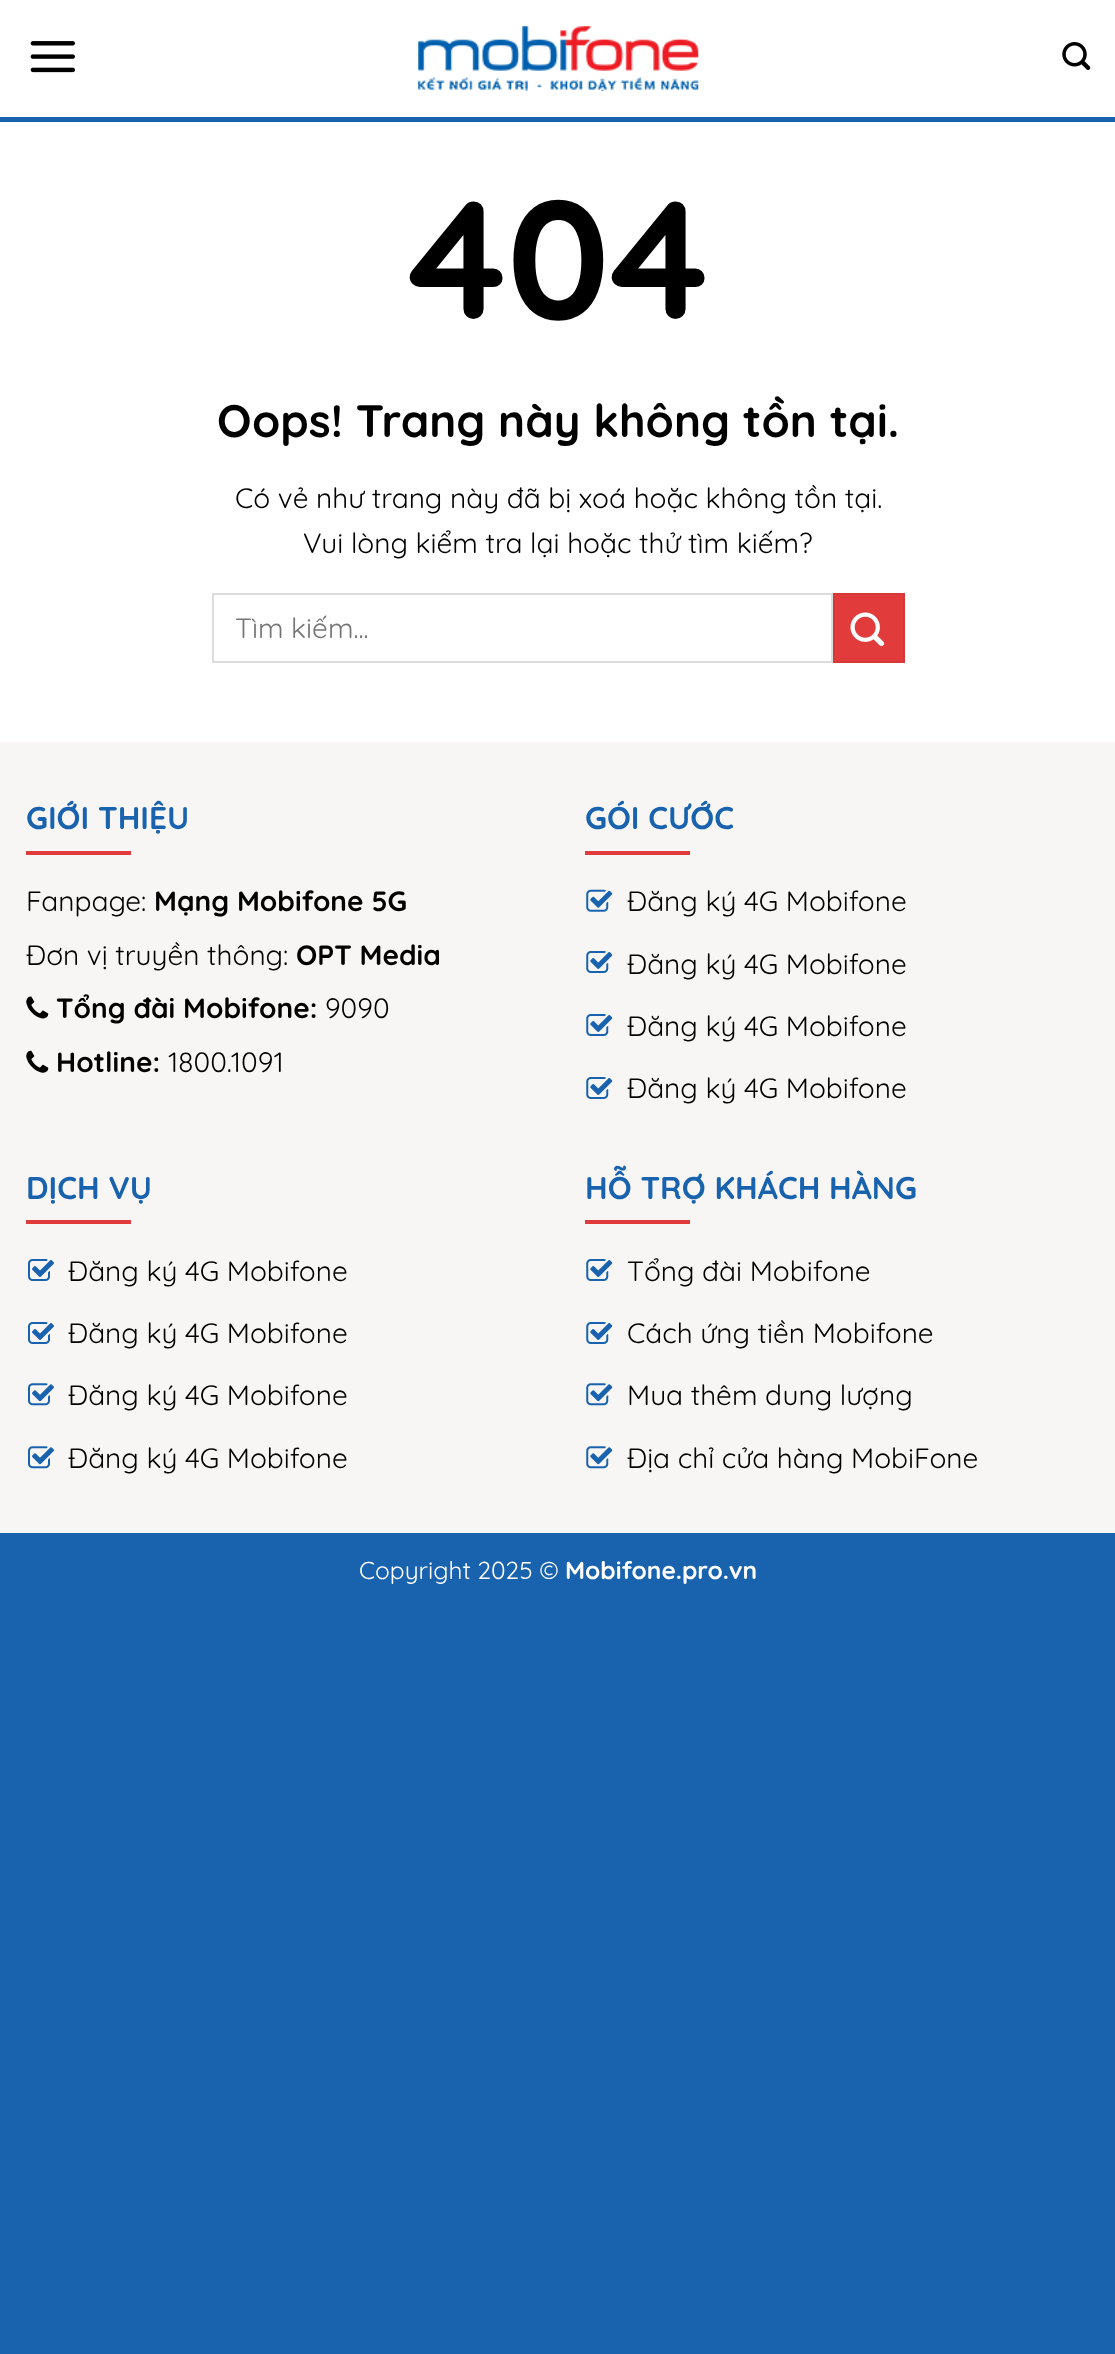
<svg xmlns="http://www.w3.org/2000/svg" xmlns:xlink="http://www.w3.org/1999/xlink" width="1115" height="2354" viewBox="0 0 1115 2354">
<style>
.cls-1{font:bold 168px Quicksand;fill:#000000}
.cls-2{font:bold 45.5px Quicksand;fill:#000000}
.cls-3{font:28px Quicksand;fill:#000000}
.cls-4{font:28px Quicksand;fill:#757575}
.cls-5{font:bold 31.5px Quicksand;fill:#1862ae}
.cls-6{font:bold 28px Quicksand;fill:#000000}
.cls-7{font:24.5px Quicksand;fill:#ffffff}
.cls-8{font:bold 24.5px Quicksand;fill:#ffffff}
</style>
<rect width="100%" height="100%" fill="#1862ae"/>
<rect fill="#ffffff" x="0" y="0" width="1115" height="742"/>
<rect fill="#1862ae" x="0" y="117" width="1115" height="5"/>
<image xlink:href="image0.png" x="30" y="41" width="45" height="32"/>
<image xlink:href="image1.png" x="418" y="26" width="281" height="65"/>
<image xlink:href="image2.png" x="1062" y="42" width="29" height="28"/>
<rect fill="none" stroke="#dddddd" stroke-width="2" x="213" y="594" width="619" height="68"/>
<rect fill="#e13b3b" stroke="#d63838" stroke-width="2" x="834" y="594" width="70" height="68"/>
<image xlink:href="image3.png" x="850" y="612" width="35" height="35"/>
<rect fill="#f7f6f4" x="0" y="742" width="1115" height="791"/>
<rect fill="#e13b3b" x="26" y="851" width="105" height="4"/>
<image xlink:href="image4.png" x="26" y="996" width="23" height="23"/>
<image xlink:href="image5.png" x="26" y="1050" width="23" height="23"/>
<rect fill="#e13b3b" x="585" y="851" width="105" height="4"/>
<image xlink:href="image6.png" x="586" y="889" width="27" height="23"/>
<image xlink:href="image7.png" x="586" y="951" width="27" height="22"/>
<image xlink:href="image7.png" x="586" y="1014" width="27" height="22"/>
<image xlink:href="image7.png" x="586" y="1077" width="27" height="22"/>
<rect fill="#e13b3b" x="26" y="1220" width="105" height="4"/>
<image xlink:href="image8.png" x="28" y="1259" width="26" height="22"/>
<image xlink:href="image8.png" x="28" y="1322" width="26" height="22"/>
<image xlink:href="image9.png" x="28" y="1383" width="26" height="23"/>
<image xlink:href="image9.png" x="28" y="1446" width="26" height="23"/>
<rect fill="#e13b3b" x="585" y="1220" width="105" height="4"/>
<image xlink:href="image7.png" x="586" y="1259" width="27" height="22"/>
<image xlink:href="image7.png" x="586" y="1322" width="27" height="22"/>
<image xlink:href="image10.png" x="586" y="1383" width="27" height="23"/>
<image xlink:href="image10.png" x="586" y="1446" width="27" height="23"/>
<text class="cls-1" x="408" y="319">404</text>
<text class="cls-2" x="217" y="437">Oops! Trang này không tồn tại.</text>
<text class="cls-3" x="235" y="508">Có vẻ như trang này đã bị xoá hoặc không tồn tại.</text>
<text class="cls-3" x="303" y="553">Vui lòng kiểm tra lại hoặc thử tìm kiếm?</text>
<text class="cls-4" x="235" y="638">Tìm kiếm...</text>
<text class="cls-5" x="26" y="829">GIỚI THIỆU</text>
<text class="cls-3" x="26" y="911">Fanpage:</text>
<text class="cls-6" x="154" y="911">Mạng Mobifone 5G</text>
<text class="cls-3" x="26" y="965">Đơn vị truyền thông:</text>
<text class="cls-6" x="296" y="965">OPT Media</text>
<text class="cls-6" x="56" y="1018">Tổng đài Mobifone:</text>
<text class="cls-3" x="325" y="1018">9090</text>
<text class="cls-6" x="56" y="1072">Hotline:</text>
<text class="cls-3" x="168" y="1072">1800.1091</text>
<text class="cls-5" x="585" y="829">GÓI CƯỚC</text>
<text class="cls-3" x="627" y="911">Đăng ký 4G Mobifone</text>
<text class="cls-3" x="627" y="974">Đăng ký 4G Mobifone</text>
<text class="cls-3" x="627" y="1036">Đăng ký 4G Mobifone</text>
<text class="cls-3" x="627" y="1098">Đăng ký 4G Mobifone</text>
<text class="cls-5" x="26" y="1199">DỊCH VỤ</text>
<text class="cls-3" x="68" y="1281">Đăng ký 4G Mobifone</text>
<text class="cls-3" x="68" y="1343">Đăng ký 4G Mobifone</text>
<text class="cls-3" x="68" y="1405">Đăng ký 4G Mobifone</text>
<text class="cls-3" x="68" y="1468">Đăng ký 4G Mobifone</text>
<text class="cls-5" x="585" y="1199">HỖ TRỢ KHÁCH HÀNG</text>
<text class="cls-3" x="627" y="1281">Tổng đài Mobifone</text>
<text class="cls-3" x="627" y="1343">Cách ứng tiền Mobifone</text>
<text class="cls-3" x="627" y="1405">Mua thêm dung lượng</text>
<text class="cls-3" x="627" y="1468">Địa chỉ cửa hàng MobiFone</text>
<text class="cls-7" x="359" y="1579">Copyright 2025 ©</text>
<text class="cls-8" x="565" y="1579">Mobifone.pro.vn</text>
</svg>
